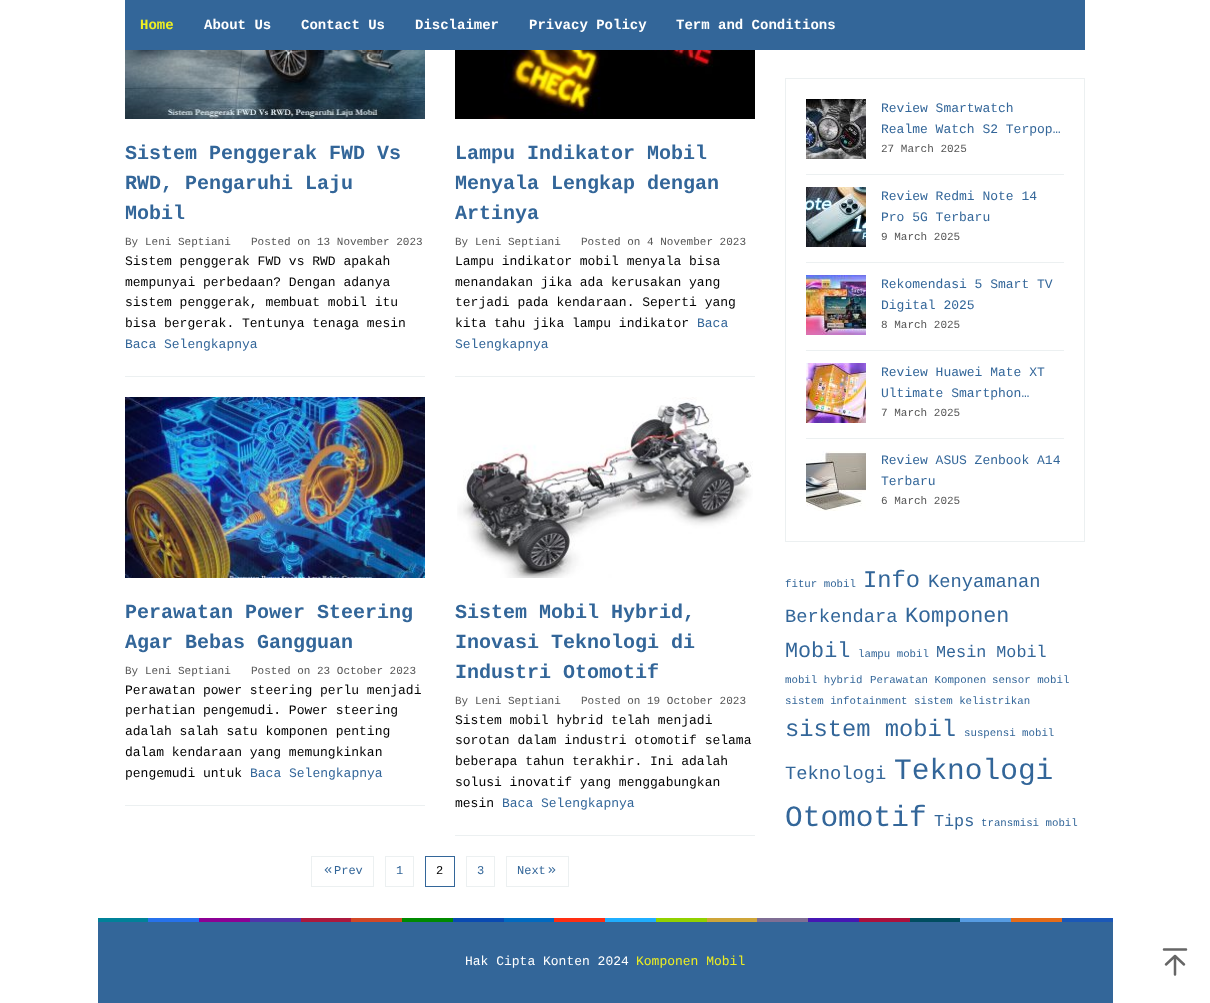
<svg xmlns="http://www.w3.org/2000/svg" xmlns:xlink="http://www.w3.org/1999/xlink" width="1210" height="1003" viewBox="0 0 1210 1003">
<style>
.cls-1{font:bold 14px Liberation Mono;fill:#eeee22}
.cls-2{font:bold 14px Liberation Mono;fill:#ffffff}
.cls-3{font:bold 20px Liberation Mono;fill:#336699}
.cls-4{font:11px Liberation Mono;fill:#555555}
.cls-5{font:13px Liberation Mono;fill:#000000}
.cls-6{font:13px Liberation Mono;fill:#336699}
.cls-7{font:12px Liberation Mono;fill:#336699}
.cls-8{font:12px Liberation Mono;fill:#000000}
.cls-9{font:10.75px Liberation Mono;fill:#336699}
.cls-10{font:23.75px Liberation Mono;fill:#336699}
.cls-11{font:18.75px Liberation Mono;fill:#336699}
.cls-12{font:21.75px Liberation Mono;fill:#336699}
.cls-13{font:16.75px Liberation Mono;fill:#336699}
.cls-14{font:29.5px Liberation Mono;fill:#336699}
.cls-15{font:13px Liberation Mono;fill:#ffffff}
.cls-16{font:13px Liberation Mono;fill:#eeee22}
</style>
<rect width="100%" height="100%" fill="#ffffff"/>
<rect fill="#336699" x="125" y="0" width="960" height="50"/>
<rect fill="#ecf0f1" x="125" y="376" width="300" height="1"/>
<image xlink:href="image0.png" x="125" y="50" width="300" height="69"/>
<rect fill="#ecf0f1" x="455" y="376" width="300" height="1"/>
<image xlink:href="image1.png" x="455" y="50" width="300" height="69"/>
<rect fill="#ecf0f1" x="125" y="805" width="300" height="1"/>
<image xlink:href="image2.png" x="125" y="397" width="300" height="181"/>
<rect fill="#ecf0f1" x="455" y="835" width="300" height="1"/>
<image xlink:href="image3.png" x="457" y="397" width="296" height="181"/>
<rect fill="none" stroke="#ecf0f1" x="311.5" y="856.5" width="62" height="30"/>
<image xlink:href="image4.png" x="324" y="867" width="8" height="6"/>
<rect fill="none" stroke="#ecf0f1" x="385.5" y="856.5" width="28" height="30"/>
<rect fill="none" stroke="#336699" x="425.5" y="856.5" width="29" height="30"/>
<rect fill="none" stroke="#ecf0f1" x="466.5" y="856.5" width="28" height="30"/>
<rect fill="none" stroke="#ecf0f1" x="506.5" y="856.5" width="62" height="30"/>
<image xlink:href="image5.png" x="548" y="867" width="8" height="6"/>
<rect fill="none" stroke="#ecf0f1" x="785.5" y="78.5" width="299" height="463"/>
<rect fill="#ecf0f1" x="806" y="174" width="258" height="1"/>
<image xlink:href="image6.png" x="806" y="99" width="60" height="60"/>
<rect fill="#ecf0f1" x="806" y="262" width="258" height="1"/>
<image xlink:href="image7.png" x="806" y="187" width="60" height="60"/>
<rect fill="#ecf0f1" x="806" y="350" width="258" height="1"/>
<image xlink:href="image8.png" x="806" y="275" width="60" height="60"/>
<rect fill="#ecf0f1" x="806" y="438" width="258" height="1"/>
<image xlink:href="image9.png" x="806" y="363" width="60" height="60"/>
<image xlink:href="image10.png" x="806" y="451" width="60" height="60"/>
<rect fill="#008299" x="98" y="918" width="50" height="4"/>
<rect fill="#2672ec" x="148" y="918" width="51" height="4"/>
<rect fill="#8c0095" x="199" y="918" width="51" height="4"/>
<rect fill="#5133ab" x="250" y="918" width="51" height="4"/>
<rect fill="#ac193d" x="301" y="918" width="50" height="4"/>
<rect fill="#d24726" x="351" y="918" width="51" height="4"/>
<rect fill="#008a00" x="402" y="918" width="51" height="4"/>
<rect fill="#094ab2" x="453" y="918" width="51" height="4"/>
<rect fill="#006ac1" x="504" y="918" width="50" height="4"/>
<rect fill="#ff2e12" x="554" y="918" width="51" height="4"/>
<rect fill="#1faeff" x="605" y="918" width="51" height="4"/>
<rect fill="#91d100" x="656" y="918" width="51" height="4"/>
<rect fill="#cea539" x="707" y="918" width="50" height="4"/>
<rect fill="#7f6e94" x="757" y="918" width="51" height="4"/>
<rect fill="#4617b4" x="808" y="918" width="51" height="4"/>
<rect fill="#ad103c" x="859" y="918" width="51" height="4"/>
<rect fill="#004d60" x="910" y="918" width="50" height="4"/>
<rect fill="#569ce3" x="960" y="918" width="51" height="4"/>
<rect fill="#e56c19" x="1011" y="918" width="51" height="4"/>
<rect fill="#1b58b8" x="1062" y="918" width="51" height="4"/>
<rect fill="#336699" x="98" y="922" width="1015" height="81"/>
<path fill="none" stroke="#666666" stroke-width="2.5" stroke-linecap="round" stroke-linejoin="round" d="M1175 974.5V956M1166 964.5L1175 956L1184 964.5M1164 949.5H1186"/>
<text class="cls-1" x="140" y="29">Home</text>
<text class="cls-2" x="204" y="29">About Us</text>
<text class="cls-2" x="301" y="29">Contact Us</text>
<text class="cls-2" x="415" y="29">Disclaimer</text>
<text class="cls-2" x="529" y="29">Privacy Policy</text>
<text class="cls-2" x="676" y="29">Term and Conditions</text>
<text class="cls-3"><tspan x="125" y="159">Sistem Penggerak FWD Vs</tspan><tspan x="125" y="189">RWD, Pengaruhi Laju</tspan><tspan x="125" y="219">Mobil</tspan></text>
<text class="cls-4" x="125" y="245">By</text>
<text class="cls-4" x="145" y="245">Leni Septiani</text>
<text class="cls-4" x="251" y="245">Posted on 13 November 2023</text>
<text class="cls-5"><tspan x="125" y="265">Sistem penggerak FWD vs RWD apakah</tspan><tspan x="125" y="286">mempunyai perbedaan? Dengan adanya</tspan><tspan x="125" y="306">sistem penggerak, membuat mobil itu</tspan><tspan x="125" y="327">bisa bergerak. Tentunya tenaga mesin</tspan></text>
<text class="cls-6" x="125" y="348">Baca Selengkapnya</text>
<text class="cls-3"><tspan x="455" y="159">Lampu Indikator Mobil</tspan><tspan x="455" y="189">Menyala Lengkap dengan</tspan><tspan x="455" y="219">Artinya</tspan></text>
<text class="cls-4" x="455" y="245">By</text>
<text class="cls-4" x="475" y="245">Leni Septiani</text>
<text class="cls-4" x="581" y="245">Posted on 4 November 2023</text>
<text class="cls-5"><tspan x="455" y="265">Lampu indikator mobil menyala bisa</tspan><tspan x="455" y="286">menandakan jika ada kerusakan yang</tspan><tspan x="455" y="306">terjadi pada kendaraan. Seperti yang</tspan><tspan x="455" y="327">kita tahu jika lampu indikator</tspan></text>
<text class="cls-6" x="697" y="327">Baca</text>
<text class="cls-6" x="455" y="348">Selengkapnya</text>
<text class="cls-3"><tspan x="125" y="618">Perawatan Power Steering</tspan><tspan x="125" y="648">Agar Bebas Gangguan</tspan></text>
<text class="cls-4" x="125" y="674">By</text>
<text class="cls-4" x="145" y="674">Leni Septiani</text>
<text class="cls-4" x="251" y="674">Posted on 23 October 2023</text>
<text class="cls-5"><tspan x="125" y="694">Perawatan power steering perlu menjadi</tspan><tspan x="125" y="714">perhatian pengemudi. Power steering</tspan><tspan x="125" y="735">adalah salah satu komponen penting</tspan><tspan x="125" y="756">dalam kendaraan yang memungkinkan</tspan><tspan x="125" y="777">pengemudi untuk</tspan></text>
<text class="cls-6" x="250" y="777">Baca Selengkapnya</text>
<text class="cls-3"><tspan x="455" y="618">Sistem Mobil Hybrid,</tspan><tspan x="455" y="648">Inovasi Teknologi di</tspan><tspan x="455" y="678">Industri Otomotif</tspan></text>
<text class="cls-4" x="455" y="704">By</text>
<text class="cls-4" x="475" y="704">Leni Septiani</text>
<text class="cls-4" x="581" y="704">Posted on 19 October 2023</text>
<text class="cls-5"><tspan x="455" y="724">Sistem mobil hybrid telah menjadi</tspan><tspan x="455" y="744">sorotan dalam industri otomotif selama</tspan><tspan x="455" y="765">beberapa tahun terakhir. Ini adalah</tspan><tspan x="455" y="786">solusi inovatif yang menggabungkan</tspan><tspan x="455" y="807">mesin</tspan></text>
<text class="cls-6" x="502" y="807">Baca Selengkapnya</text>
<text class="cls-7" x="334" y="874">Prev</text>
<text class="cls-7" x="396" y="874">1</text>
<text class="cls-8" x="436" y="874">2</text>
<text class="cls-7" x="477" y="874">3</text>
<text class="cls-7" x="517" y="874">Next</text>
<text class="cls-6"><tspan x="881" y="112">Review Smartwatch</tspan><tspan x="881" y="133">Realme Watch S2 Terpop…</tspan></text>
<text class="cls-4" x="881" y="152">27 March 2025</text>
<text class="cls-6"><tspan x="881" y="200">Review Redmi Note 14</tspan><tspan x="881" y="221">Pro 5G Terbaru</tspan></text>
<text class="cls-4" x="881" y="240">9 March 2025</text>
<text class="cls-6"><tspan x="881" y="288">Rekomendasi 5 Smart TV</tspan><tspan x="881" y="309">Digital 2025</tspan></text>
<text class="cls-4" x="881" y="328">8 March 2025</text>
<text class="cls-6"><tspan x="881" y="376">Review Huawei Mate XT</tspan><tspan x="881" y="397">Ultimate Smartphon…</tspan></text>
<text class="cls-4" x="881" y="416">7 March 2025</text>
<text class="cls-6"><tspan x="881" y="464">Review ASUS Zenbook A14</tspan><tspan x="881" y="485">Terbaru</tspan></text>
<text class="cls-4" x="881" y="504">6 March 2025</text>
<text class="cls-9" x="785" y="587">fitur mobil</text>
<text class="cls-10" x="863" y="587">Info</text>
<text class="cls-11" x="928" y="587">Kenyamanan</text>
<text class="cls-11" x="785" y="622">Berkendara</text>
<text class="cls-12" x="905" y="622">Komponen</text>
<text class="cls-12" x="785" y="657">Mobil</text>
<text class="cls-9" x="858" y="657">lampu mobil</text>
<text class="cls-13" x="936" y="657">Mesin Mobil</text>
<text class="cls-9" x="785" y="683">mobil hybrid</text>
<text class="cls-9" x="870" y="683">Perawatan Komponen</text>
<text class="cls-9" x="992" y="683">sensor mobil</text>
<text class="cls-9" x="785" y="704">sistem infotainment</text>
<text class="cls-9" x="914" y="704">sistem kelistrikan</text>
<text class="cls-10" x="785" y="736">sistem mobil</text>
<text class="cls-9" x="964" y="736">suspensi mobil</text>
<text class="cls-11" x="785" y="779">Teknologi</text>
<text class="cls-14" x="894" y="779">Teknologi</text>
<text class="cls-14" x="785" y="826">Otomotif</text>
<text class="cls-13" x="934" y="826">Tips</text>
<text class="cls-9" x="981" y="826">transmisi mobil</text>
<text class="cls-15" x="465" y="965">Hak Cipta Konten 2024</text>
<text class="cls-16" x="636" y="965">Komponen Mobil</text>
</svg>
